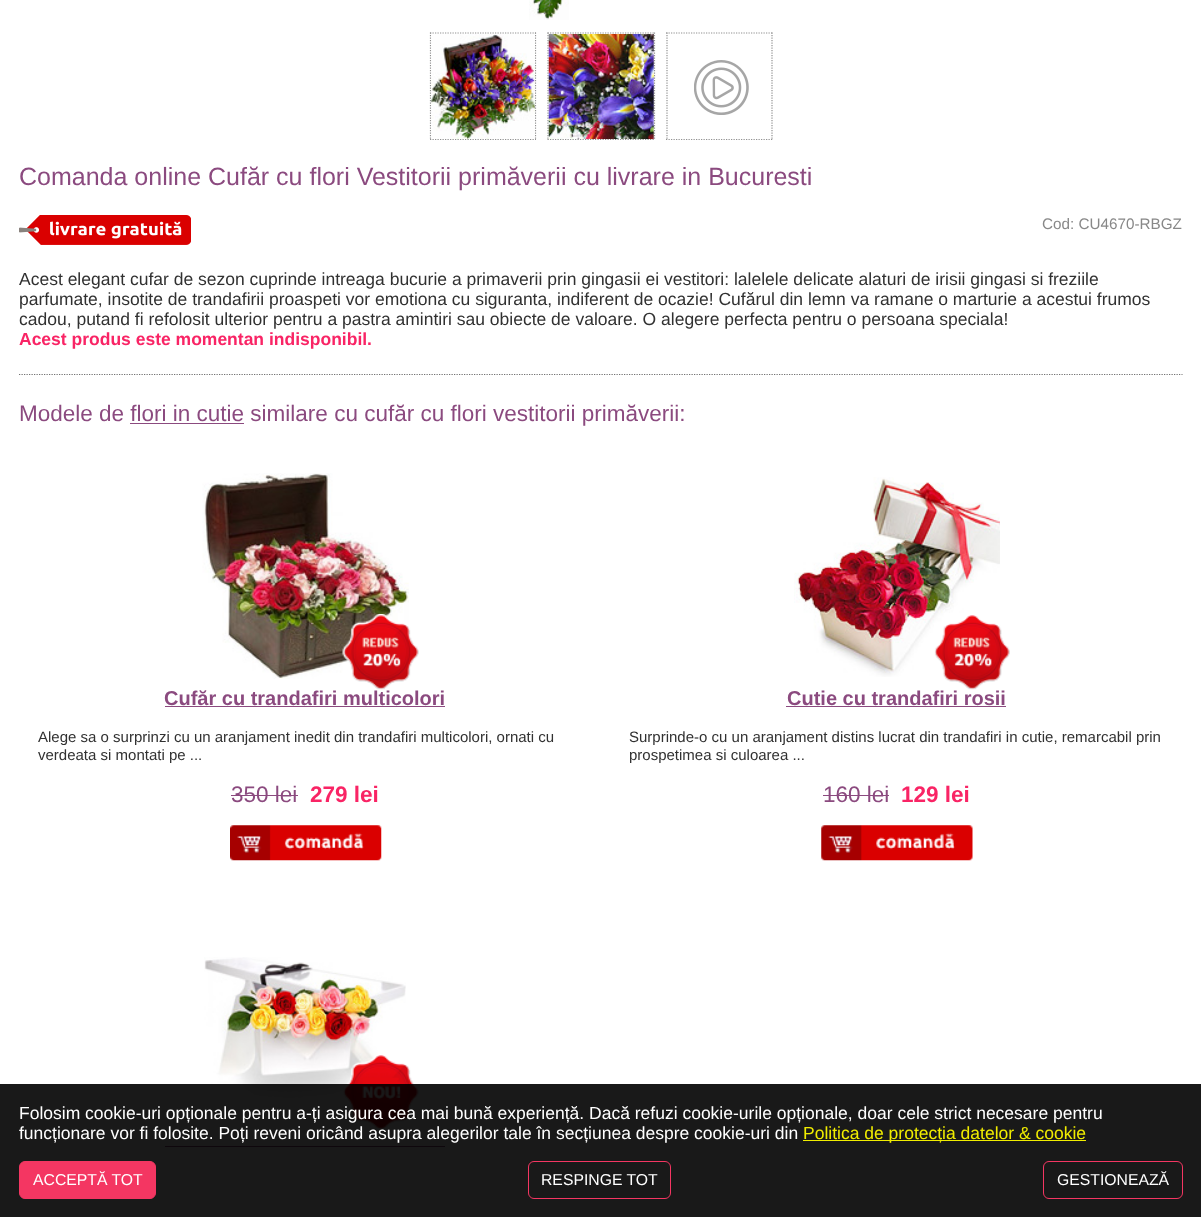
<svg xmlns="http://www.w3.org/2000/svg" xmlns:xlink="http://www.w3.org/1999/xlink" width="1201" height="1217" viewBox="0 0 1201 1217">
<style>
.cls-1{font:25px Liberation Sans;fill:#8b4a7f}
.cls-2{font:15.25px Liberation Sans;fill:#888888}
.cls-3{font:17.5px Liberation Sans;fill:#313131}
.cls-4{font:bold 17.5px Liberation Sans;fill:#f92465}
.cls-5{font:22.5px Liberation Sans;fill:#8b4a7f}
.cls-6{font:bold 20px Liberation Sans;fill:#8b4a7f}
.cls-7{font:15px Liberation Sans;fill:#313131}
.cls-8{font:bold 22.5px Liberation Sans;fill:#f92465}
.cls-9{font:17.5px Liberation Sans;fill:#ffffff}
.cls-10{font:17.5px Liberation Sans;fill:#f1ed00}
.cls-11{font:15.75px Liberation Sans;fill:#ffffff}
</style>
<rect width="100%" height="100%" fill="#ffffff"/>
<image xlink:href="image0.png" x="529" y="0" width="40" height="20"/>
<path fill="none" stroke="#919191" stroke-width="1.2" stroke-dasharray="1.25 1.25" d="M430 33H536"/>
<path fill="none" stroke="#919191" stroke-width="1.2" stroke-dasharray="1.25 1.25" d="M535.5 32.5V140"/>
<path fill="none" stroke="#919191" stroke-width="1.2" stroke-dasharray="1.25 1.25" d="M430 139.5H536"/>
<path fill="none" stroke="#919191" stroke-width="1.2" stroke-dasharray="1.25 1.25" d="M430.5 32.5V140"/>
<image xlink:href="image1.png" x="431" y="34" width="104" height="105"/>
<path fill="none" stroke="#919191" stroke-width="1.2" stroke-dasharray="1.25 1.25" d="M547.5 33H655"/>
<path fill="none" stroke="#919191" stroke-width="1.2" stroke-dasharray="1.25 1.25" d="M654.5 32.5V140"/>
<path fill="none" stroke="#919191" stroke-width="1.2" stroke-dasharray="1.25 1.25" d="M547.5 139.5H655"/>
<path fill="none" stroke="#919191" stroke-width="1.2" stroke-dasharray="1.25 1.25" d="M548 32.5V140"/>
<image xlink:href="image2.png" x="548" y="34" width="106" height="105"/>
<path fill="none" stroke="#919191" stroke-width="1.2" stroke-dasharray="1.25 1.25" d="M666 33H772.5"/>
<path fill="none" stroke="#919191" stroke-width="1.2" stroke-dasharray="1.25 1.25" d="M772 32.5V140"/>
<path fill="none" stroke="#919191" stroke-width="1.2" stroke-dasharray="1.25 1.25" d="M666 139.5H772.5"/>
<path fill="none" stroke="#919191" stroke-width="1.2" stroke-dasharray="1.25 1.25" d="M667 32.5V140"/>
<image xlink:href="image3.png" x="694" y="60" width="55" height="55"/>
<image xlink:href="image4.png" x="19" y="215" width="172" height="30"/>
<path fill="none" stroke="#737373" stroke-width="1.2" stroke-dasharray="1.25 1.25" d="M19 374.5H1182.5"/>
<rect fill="#8b4a7f" x="130" y="423" width="114" height="1"/>
<image xlink:href="image5.png" x="202" y="473" width="207" height="206"/>
<image xlink:href="image6.png" x="342" y="614" width="77" height="76"/>
<rect fill="#8b4a7f" x="165" y="706" width="280" height="1"/>
<rect fill="#8b4a7f" x="231" y="795" width="67" height="1"/>
<image xlink:href="image7.png" x="230" y="825" width="152" height="36"/>
<image xlink:href="image8.png" x="794" y="477" width="206" height="200"/>
<image xlink:href="image9.png" x="934" y="615" width="76" height="75"/>
<rect fill="#8b4a7f" x="786" y="706" width="220" height="1"/>
<rect fill="#8b4a7f" x="823" y="795" width="66" height="1"/>
<image xlink:href="image10.png" x="821" y="825" width="152" height="36"/>
<image xlink:href="image11.png" x="204" y="957" width="202" height="144"/>
<image xlink:href="image12.png" x="343" y="1055" width="76" height="75"/>
<rect fill="#8b4a7f" x="165" y="1146" width="280" height="1"/>
<rect fill="#000000" fill-opacity="0.9" x="0" y="1084" width="1201" height="133"/>
<rect fill="#f1ed00" x="803" y="1140" width="283" height="1"/>
<rect fill="#f43662" stroke="#f43662" x="19.5" y="1161.5" width="136" height="37" rx="5.5"/>
<rect fill="none" stroke="#f43662" x="528.5" y="1161.5" width="142" height="37" rx="5.5"/>
<rect fill="none" stroke="#f43662" x="1043.5" y="1161.5" width="139" height="37" rx="5.5"/>
<text class="cls-1" x="19" y="185">Comanda online Cufăr cu flori Vestitorii primăverii cu livrare in Bucuresti</text>
<text class="cls-2" x="1042" y="229">Cod: CU4670-RBGZ</text>
<text class="cls-3"><tspan x="19" y="285">Acest elegant cufar de sezon cuprinde intreaga bucurie a primaverii prin gingasii ei vestitori: lalelele delicate alaturi de irisii gingasi si freziile</tspan><tspan x="19" y="305">parfumate, insotite de trandafirii proaspeti vor emotiona cu siguranta, indiferent de ocazie! Cufărul din lemn va ramane o marturie a acestui frumos</tspan><tspan x="19" y="325">cadou, putand fi refolosit ulterior pentru a pastra amintiri sau obiecte de valoare. O alegere perfecta pentru o persoana speciala!</tspan></text>
<text class="cls-4" x="19" y="345">Acest produs este momentan indisponibil.</text>
<text class="cls-5" x="19" y="421">Modele de flori in cutie similare cu cufăr cu flori vestitorii primăverii:</text>
<text class="cls-6" x="164" y="705">Cufăr cu trandafiri multicolori</text>
<text class="cls-7"><tspan x="38" y="742">Alege sa o surprinzi cu un aranjament inedit din trandafiri multicolori, ornati cu</tspan><tspan x="38" y="760">verdeata si montati pe ...</tspan></text>
<text class="cls-5" x="231" y="802">350 lei</text>
<text class="cls-8" x="310" y="802">279 lei</text>
<text class="cls-6" x="787" y="705">Cutie cu trandafiri rosii</text>
<text class="cls-7"><tspan x="629" y="742">Surprinde-o cu un aranjament distins lucrat din trandafiri in cutie, remarcabil prin</tspan><tspan x="629" y="760">prospetimea si culoarea ...</tspan></text>
<text class="cls-5" x="823" y="802">160 lei</text>
<text class="cls-8" x="901" y="802">129 lei</text>
<text class="cls-9"><tspan x="19" y="1119">Folosim cookie-uri opționale pentru a-ți asigura cea mai bună experiență. Dacă refuzi cookie-urile opționale, doar cele strict necesare pentru</tspan><tspan x="19" y="1139">funcționare vor fi folosite. Poți reveni oricând asupra alegerilor tale în secțiunea despre cookie-uri din</tspan></text>
<text class="cls-10" x="803" y="1139">Politica de protecția datelor &amp; cookie</text>
<text class="cls-11" x="33" y="1185">ACCEPTĂ TOT</text>
<text class="cls-11" x="541" y="1185">RESPINGE TOT</text>
<text class="cls-11" x="1057" y="1185">GESTIONEAZĂ</text>
</svg>
